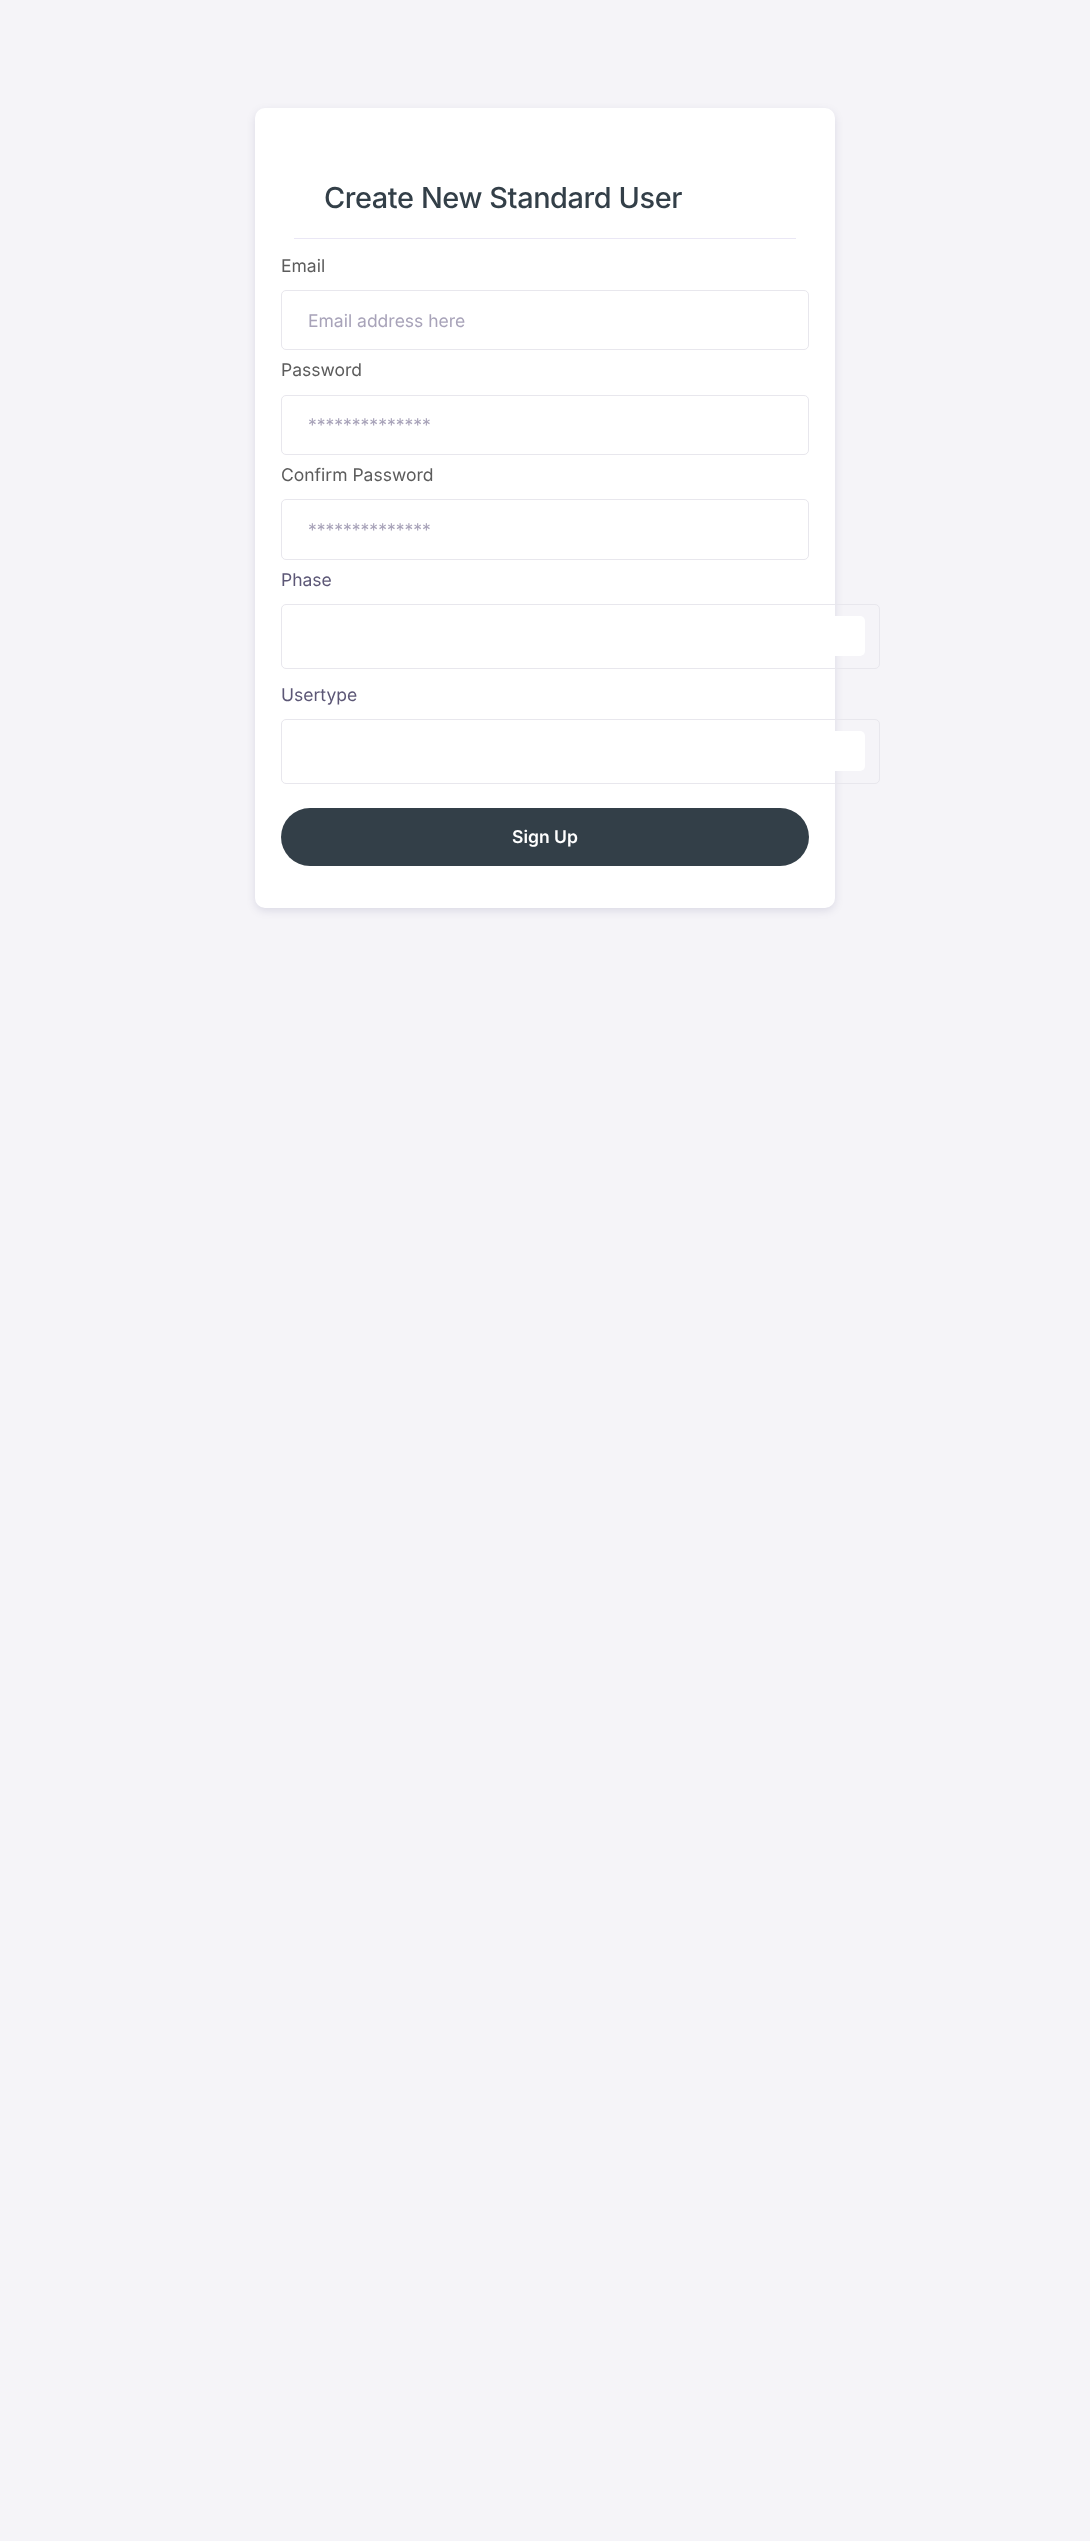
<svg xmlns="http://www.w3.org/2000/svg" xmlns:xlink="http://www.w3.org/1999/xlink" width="1090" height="2541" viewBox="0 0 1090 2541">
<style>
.cls-1{font:500 28.9px Inter;letter-spacing:-0.4px;fill:#333f48}
.cls-2{font:17.5px Inter;fill:#5c5c5c}
.cls-3{font:17.5px Inter;fill:#a8a3b9}
.cls-4{font:17.5px Inter;fill:#5c5776}
.cls-5{font:600 17.5px Inter;fill:#ffffff}
</style>
<rect width="100%" height="100%" fill="#f5f4f8"/>
<rect fill="#030047" fill-opacity="0.1" filter="blur(4px)" x="255" y="111" width="580" height="800" rx="10"/>
<rect fill="#ffffff" x="255" y="108" width="580" height="800" rx="10"/>
<rect fill="#eae7f5" x="294" y="238" width="502" height="1"/>
<rect fill="none" stroke="#e8e7ed" x="281.5" y="290.5" width="527" height="59" rx="4.5"/>
<rect fill="none" stroke="#e8e7ed" x="281.5" y="395.5" width="527" height="59" rx="4.5"/>
<rect fill="none" stroke="#e8e7ed" x="281.5" y="499.5" width="527" height="60" rx="4.5"/>
<rect fill="none" stroke="#e8e7ed" x="281.5" y="604.5" width="598" height="64" rx="4.5"/>
<rect fill="#ffffff" x="296" y="616" width="569" height="40" rx="5"/>
<rect fill="none" stroke="#e8e7ed" x="281.5" y="719.5" width="598" height="64" rx="4.5"/>
<rect fill="#ffffff" x="296" y="731" width="569" height="40" rx="5"/>
<rect fill="#333f48" x="281" y="808" width="528" height="58" rx="29"/>
<text class="cls-1" x="324" y="208">Create New Standard User</text>
<text class="cls-2" x="281" y="272">Email</text>
<text class="cls-3" x="308" y="327">Email address here</text>
<text class="cls-2" x="281" y="376">Password</text>
<text class="cls-3" x="308" y="431">**************</text>
<text class="cls-2" x="281" y="481">Confirm Password</text>
<text class="cls-3" x="308" y="536">**************</text>
<text class="cls-4" x="281" y="586">Phase</text>
<text class="cls-4" x="281" y="701">Usertype</text>
<text class="cls-5" x="512" y="843">Sign Up</text>
</svg>
